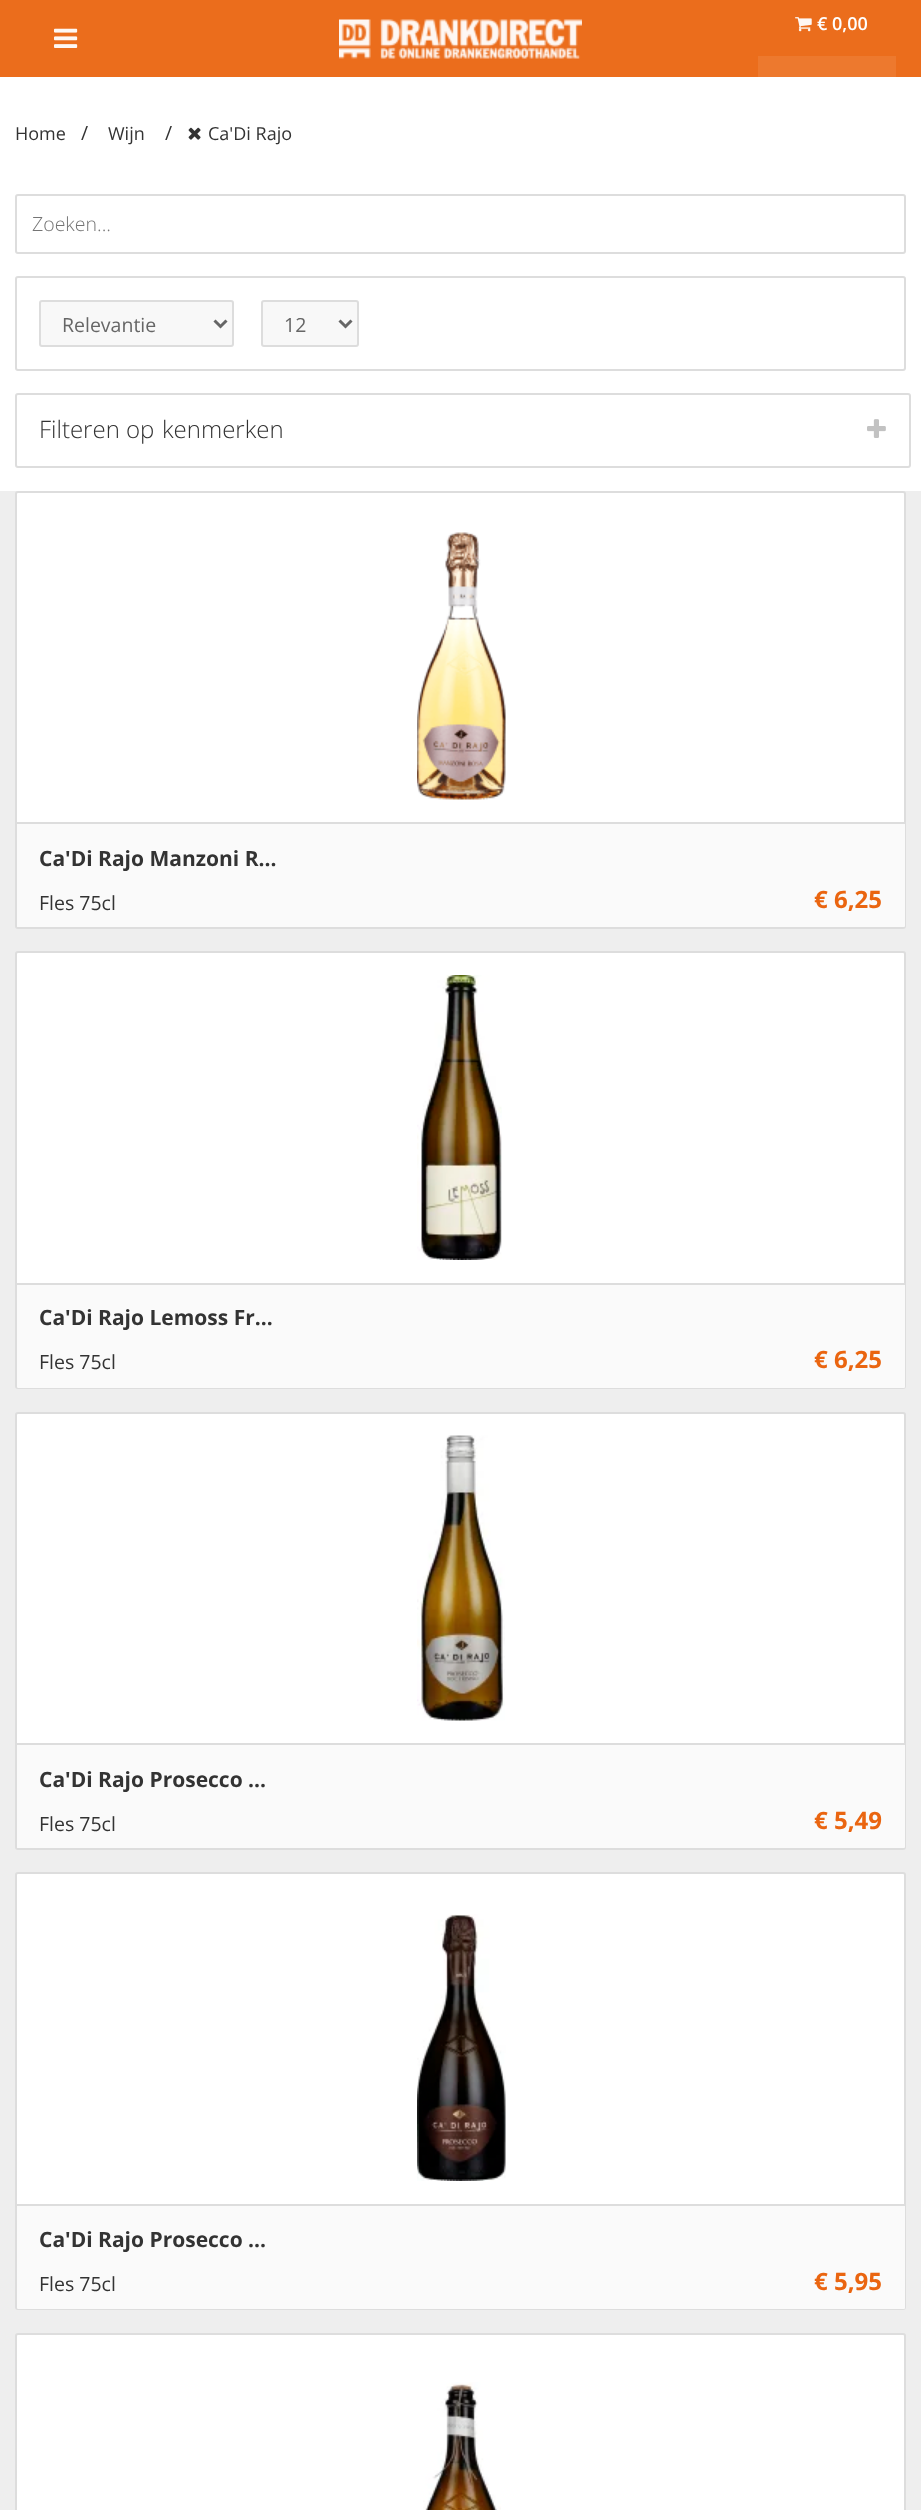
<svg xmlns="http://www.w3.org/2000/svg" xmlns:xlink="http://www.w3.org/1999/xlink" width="921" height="2510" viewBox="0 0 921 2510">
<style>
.cls-1{font:600 18px Open Sans;fill:#ffffff}
.cls-2{font:18px Open Sans;fill:#333333}
.cls-3{font:19.5px Open Sans;fill:#333333}
.cls-4{font:300 19.5px Open Sans;fill:#757575}
.cls-5{font:19.5px Open Sans;fill:#666666}
.cls-6{font:300 24px Open Sans;fill:#333333}
.cls-7{font:bold 21px Open Sans;fill:#333333}
.cls-8{font:bold 24px Open Sans;fill:#ea6510}
</style>
<rect width="100%" height="100%" fill="#ffffff"/>
<rect fill="#eb6d1c" x="0" y="0" width="921" height="77"/>
<image xlink:href="image0.png" x="54" y="28" width="24" height="20"/>
<image xlink:href="image1.png" x="339" y="19" width="243" height="40"/>
<image xlink:href="image2.png" x="795" y="17" width="17" height="15"/>
<rect fill="#ed792e" x="758" y="56" width="138" height="21"/>
<image xlink:href="image3.png" x="188" y="127" width="13" height="13"/>
<rect fill="none" stroke="#dddddd" stroke-width="2" x="16" y="195" width="889" height="58" rx="2"/>
<rect fill="none" stroke="#dddddd" stroke-width="2" x="16" y="277" width="889" height="93" rx="2"/>
<rect fill="#f8f8f8" stroke="#dddddd" stroke-width="2" x="40" y="301" width="193" height="45" rx="2"/>
<path fill="none" stroke="#666666" stroke-width="3" d="M214.5 320.5L220.5 326.5L226.5 320.5"/>
<rect fill="#f8f8f8" stroke="#dddddd" stroke-width="2" x="262" y="301" width="96" height="45" rx="2"/>
<path fill="none" stroke="#666666" stroke-width="3" d="M339.5 320.5L345.5 326.5L351.5 320.5"/>
<rect fill="none" stroke="#dddddd" stroke-width="2" x="16" y="394" width="894" height="73" rx="2"/>
<image xlink:href="image4.png" x="867" y="419" width="19" height="19"/>
<rect fill="#eeeeee" x="0" y="491" width="921" height="2019"/>
<rect fill="#ffffff" stroke="#dddddd" stroke-width="2" x="16" y="492" width="889" height="436" rx="2"/>
<image xlink:href="image5.png" x="417" y="532" width="89" height="268"/>
<path fill="#fafafa" d="M17 822H905V925.5C905 926.5 904.5 927 903.5 927H18.5C17.5 927 17 926.5 17 925.5Z"/>
<rect fill="#dddddd" x="17" y="822" width="888" height="2"/>
<rect fill="#ffffff" stroke="#dddddd" stroke-width="2" x="16" y="952" width="889" height="436" rx="2"/>
<image xlink:href="image6.png" x="417" y="975" width="85" height="285"/>
<path fill="#fafafa" d="M17 1283H905V1386.5C905 1387.5 904.5 1388 903.5 1388H18.5C17.5 1388 17 1387.5 17 1386.5Z"/>
<rect fill="#dddddd" x="17" y="1283" width="888" height="2"/>
<rect fill="#ffffff" stroke="#dddddd" stroke-width="2" x="16" y="1413" width="889" height="436" rx="2"/>
<image xlink:href="image7.png" x="417" y="1435" width="88" height="286"/>
<path fill="#fafafa" d="M17 1743H905V1846.5C905 1847.5 904.5 1848 903.5 1848H18.5C17.5 1848 17 1847.5 17 1846.5Z"/>
<rect fill="#dddddd" x="17" y="1743" width="888" height="2"/>
<rect fill="#ffffff" stroke="#dddddd" stroke-width="2" x="16" y="1873" width="889" height="436" rx="2"/>
<image xlink:href="image8.png" x="417" y="1914" width="89" height="267"/>
<path fill="#fafafa" d="M17 2204H905V2307.5C905 2308.5 904.5 2309 903.5 2309H18.5C17.5 2309 17 2308.5 17 2307.5Z"/>
<rect fill="#dddddd" x="17" y="2204" width="888" height="2"/>
<rect fill="#ffffff" stroke="#dddddd" stroke-width="2" x="16" y="2334" width="889" height="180" rx="2"/>
<image xlink:href="image9.png" x="423" y="2382" width="78" height="128"/>
<text class="cls-1" x="817" y="30">€ 0,00</text>
<text class="cls-2" x="15" y="140">Home</text>
<text class="cls-3" x="81" y="140">/</text>
<text class="cls-2" x="108" y="140">Wijn</text>
<text class="cls-3" x="165" y="140">/</text>
<text class="cls-2" x="208" y="140">Ca'Di Rajo</text>
<text class="cls-4" x="32" y="231">Zoeken...</text>
<text class="cls-5" x="62" y="332">Relevantie</text>
<text class="cls-5" x="284" y="332">12</text>
<text class="cls-6" x="39" y="438">Filteren op</text>
<text class="cls-6" x="162" y="438">kenmerken</text>
<text class="cls-7" x="39" y="866">Ca'Di Rajo Manzoni R...</text>
<text class="cls-3" x="39" y="910">Fles 75cl</text>
<text class="cls-8" x="814" y="908">€ 6,25</text>
<text class="cls-7" x="39" y="1325">Ca'Di Rajo Lemoss Fr...</text>
<text class="cls-3" x="39" y="1369">Fles 75cl</text>
<text class="cls-8" x="814" y="1368">€ 6,25</text>
<text class="cls-7" x="39" y="1787">Ca'Di Rajo Prosecco ...</text>
<text class="cls-3" x="39" y="1831">Fles 75cl</text>
<text class="cls-8" x="814" y="1829">€ 5,49</text>
<text class="cls-7" x="39" y="2247">Ca'Di Rajo Prosecco ...</text>
<text class="cls-3" x="39" y="2291">Fles 75cl</text>
<text class="cls-8" x="814" y="2290">€ 5,95</text>
</svg>
